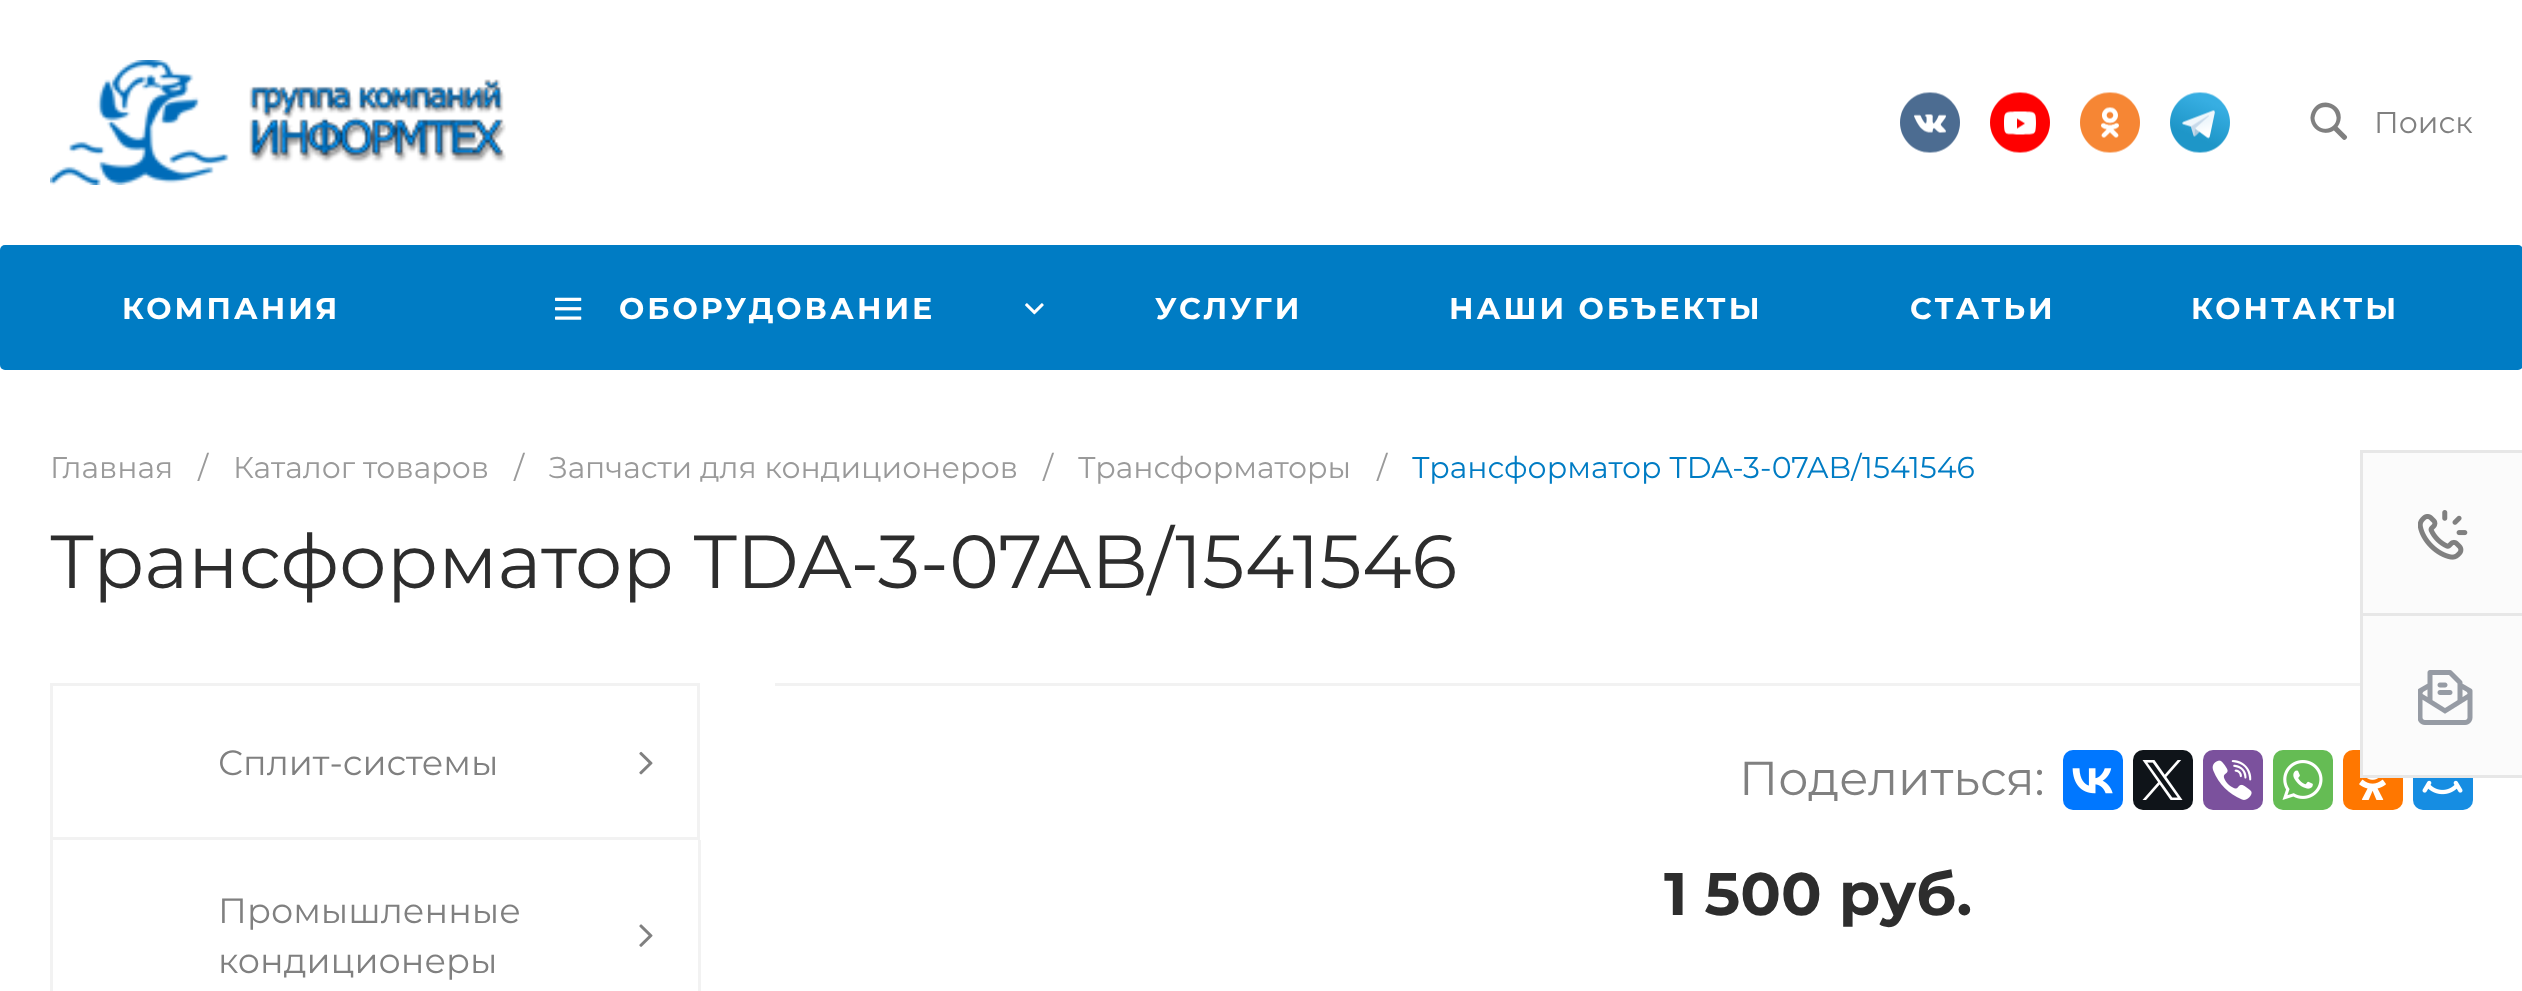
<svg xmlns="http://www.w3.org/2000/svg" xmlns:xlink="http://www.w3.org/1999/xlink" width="2522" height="991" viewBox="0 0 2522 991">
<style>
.cls-1{font:30px Montserrat;fill:#808080}
.cls-2{font:bold 30px Montserrat;letter-spacing:3px;fill:#ffffff}
.cls-3{font:30px Montserrat;fill:#9a9a9a}
.cls-4{font:30px Montserrat;fill:#007cc4}
.cls-5{font:75px Montserrat;fill:#2d2d2d}
.cls-6{font:35px Montserrat;fill:#808080}
.cls-7{font:47.5px Montserrat;fill:#808080}
.cls-8{font:bold 60px Montserrat;fill:#2d2d2d}
</style>
<rect width="100%" height="100%" fill="#ffffff"/>
<image xlink:href="image0.png" x="50" y="60" width="456" height="125"/>
<image xlink:href="image1.png" x="1900" y="92" width="60" height="61"/>
<image xlink:href="image2.png" x="1990" y="92" width="60" height="61"/>
<image xlink:href="image3.png" x="2080" y="92" width="60" height="61"/>
<image xlink:href="image4.png" x="2170" y="92" width="60" height="61"/>
<image xlink:href="image5.png" x="2310" y="102" width="38" height="38"/>
<rect fill="#007cc4" x="0" y="245" width="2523" height="125" rx="5"/>
<image xlink:href="image6.png" x="555" y="297" width="27" height="23"/>
<image xlink:href="image7.png" x="1025" y="303" width="19" height="12"/>
<rect fill="#ff7700" x="2343" y="750" width="60" height="60" rx="10"/>
<rect fill="#168de2" x="2413" y="750" width="60" height="60" rx="10"/>
<rect fill="#fbfbfb" x="2363" y="453" width="159" height="322"/>
<rect fill="#e7e7e7" x="2360" y="450" width="162" height="3"/>
<rect fill="#e7e7e7" x="2360" y="775" width="162" height="3"/>
<rect fill="#e7e7e7" x="2360" y="450" width="3" height="328"/>
<rect fill="#e7e7e7" x="2363" y="613" width="159" height="3"/>
<image xlink:href="image8.png" x="2418" y="510" width="50" height="50"/>
<image xlink:href="image9.png" x="2418" y="670" width="55" height="55"/>
<rect fill="none" stroke="#f2f2f2" stroke-width="3" x="51.5" y="684.5" width="647" height="154"/>
<image xlink:href="image10.png" x="639" y="751" width="14" height="24"/>
<rect fill="#f2f2f2" x="698" y="840" width="3" height="151"/>
<rect fill="#f2f2f2" x="50" y="840" width="3" height="151"/>
<image xlink:href="image11.png" x="639" y="924" width="14" height="23"/>
<rect fill="#f2f2f2" x="775" y="683" width="1585" height="3"/>
<rect fill="#0077ff" x="2063" y="750" width="60" height="60" rx="10"/>
<image xlink:href="image12.png" x="2072" y="768" width="41" height="26"/>
<rect fill="#0f1419" x="2133" y="750" width="60" height="60" rx="10"/>
<image xlink:href="image13.png" x="2142" y="760" width="41" height="40"/>
<rect fill="#7b519d" x="2203" y="750" width="60" height="60" rx="10"/>
<image xlink:href="image14.png" x="2212" y="760" width="40" height="40"/>
<rect fill="#65bc54" x="2273" y="750" width="60" height="60" rx="10"/>
<image xlink:href="image15.png" x="2282" y="760" width="41" height="40"/>
<image xlink:href="image16.png" x="2359" y="778" width="27" height="22"/>
<image xlink:href="image17.png" x="2422" y="780" width="41" height="15"/>
<text class="cls-1" x="2374" y="133">Поиск</text>
<text class="cls-2" x="122" y="319">КОМПАНИЯ</text>
<text class="cls-2" x="619" y="319">ОБОРУДОВАНИЕ</text>
<text class="cls-2" x="1155" y="319">УСЛУГИ</text>
<text class="cls-2" x="1449" y="319">НАШИ ОБЪЕКТЫ</text>
<text class="cls-2" x="1910" y="319">СТАТЬИ</text>
<text class="cls-2" x="2191" y="319">КОНТАКТЫ</text>
<text class="cls-3" x="50" y="478">Главная</text>
<text class="cls-3" x="198" y="478">/</text>
<text class="cls-3" x="233" y="478">Каталог товаров</text>
<text class="cls-3" x="514" y="478">/</text>
<text class="cls-3" x="549" y="478">Запчасти для кондиционеров</text>
<text class="cls-3" x="1043" y="478">/</text>
<text class="cls-3" x="1078" y="478">Трансформаторы</text>
<text class="cls-3" x="1377" y="478">/</text>
<text class="cls-4" x="1412" y="478">Трансформатор TDA-3-07AB/1541546</text>
<text class="cls-5" x="50" y="588">Трансформатор TDA-3-07AB/1541546</text>
<text class="cls-6" x="218" y="775">Сплит-системы</text>
<text class="cls-6"><tspan x="218" y="923">Промышленные</tspan><tspan x="218" y="973">кондиционеры</tspan></text>
<text class="cls-7" x="1739" y="795">Поделиться:</text>
<text class="cls-8" x="1664" y="915">1 500 руб.</text>
</svg>
